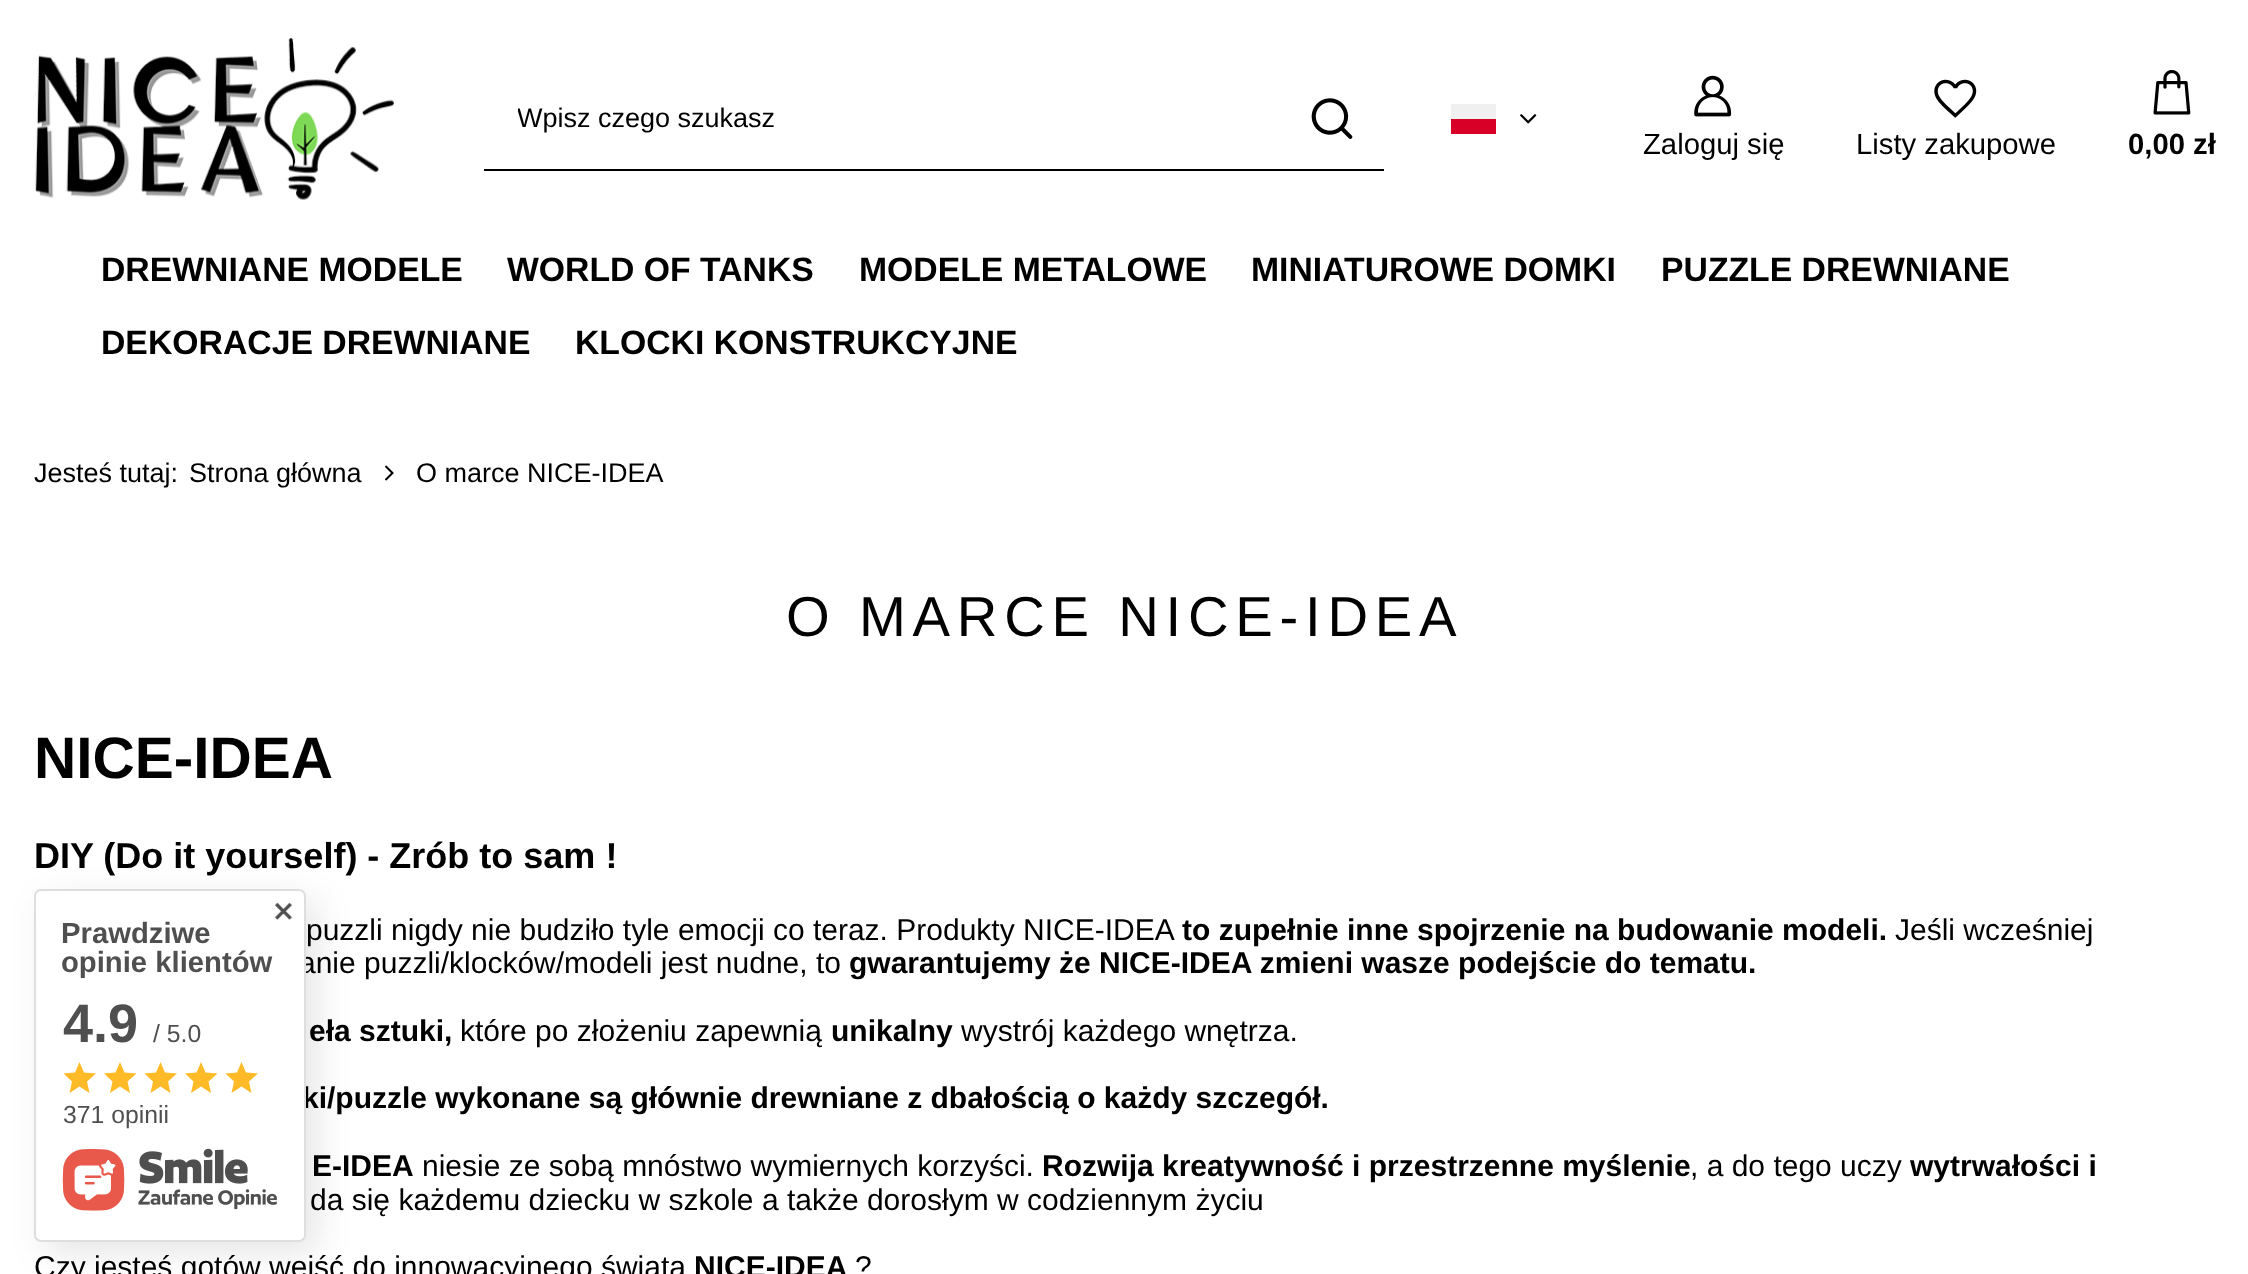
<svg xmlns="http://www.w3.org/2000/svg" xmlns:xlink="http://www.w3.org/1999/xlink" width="2248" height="1274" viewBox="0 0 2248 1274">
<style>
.cls-1{font:27px Liberation Sans;fill:#000000}
.cls-2{font:29.25px Liberation Sans;fill:#000000}
.cls-3{font:bold 29.25px Liberation Sans;fill:#000000}
.cls-4{font:bold 33.75px Liberation Sans;fill:#000000}
.cls-5{font:56.25px Liberation Sans;letter-spacing:6.75px;fill:#000000}
.cls-6{font:bold 58.5px Liberation Sans;fill:#000000}
.cls-7{font:bold 36px Liberation Sans;fill:#000000}
.cls-8{font:30px Liberation Sans;fill:#000000}
.cls-9{font:bold 30px Liberation Sans;fill:#000000}
.cls-10{font:bold 29.25px Liberation Sans;fill:#4f4f4f}
.cls-11{font:bold 54px Liberation Sans;fill:#4f4f4f}
.cls-12{font:24.75px Liberation Sans;fill:#4f4f4f}
</style>
<defs>
<clipPath id="clip1"><rect x="518" y="104" width="697" height="31"/></clipPath>
</defs>
<rect width="100%" height="100%" fill="#ffffff"/>
<image xlink:href="image0.png" x="35" y="38" width="359" height="162"/>
<rect fill="#000000" x="484" y="169" width="900" height="2"/>
<image xlink:href="image1.png" x="1311" y="98" width="42" height="41"/>
<rect fill="#f0f0f0" x="1451" y="104" width="45" height="15"/>
<rect fill="#d80027" x="1451" y="119" width="45" height="15"/>
<image xlink:href="image2.png" x="1520" y="114" width="17" height="10"/>
<image xlink:href="image3.png" x="1694" y="75" width="38" height="42"/>
<image xlink:href="image4.png" x="1934" y="79" width="43" height="39"/>
<image xlink:href="image5.png" x="2153" y="69" width="38" height="46"/>
<image xlink:href="image6.png" x="385" y="465" width="9" height="16"/>
<rect fill="#000000" fill-opacity="0.1" filter="blur(17px)" x="45" y="900" width="272" height="353" rx="7"/>
<g clip-path="url(#clip1)">
<text class="cls-1" x="517" y="127">Wpisz czego szukasz</text>
</g>
<text class="cls-2" x="1643" y="154">Zaloguj się</text>
<text class="cls-2" x="1856" y="154">Listy zakupowe</text>
<text class="cls-3" x="2128" y="154">0,00 zł</text>
<text class="cls-4" x="101" y="281">DREWNIANE MODELE</text>
<text class="cls-4" x="507" y="281">WORLD OF TANKS</text>
<text class="cls-4" x="859" y="281">MODELE METALOWE</text>
<text class="cls-4" x="1251" y="281">MINIATUROWE DOMKI</text>
<text class="cls-4" x="1661" y="281">PUZZLE DREWNIANE</text>
<text class="cls-4" x="101" y="354">DEKORACJE DREWNIANE</text>
<text class="cls-4" x="575" y="354">KLOCKI KONSTRUKCYJNE</text>
<text class="cls-1" x="34" y="482">Jesteś tutaj:</text>
<text class="cls-1" x="189" y="482">Strona główna</text>
<text class="cls-1" x="416" y="482">O marce NICE-IDEA</text>
<text class="cls-5" x="786" y="636">O MARCE NICE-IDEA</text>
<text class="cls-6" x="34" y="778">NICE-IDEA</text>
<text class="cls-7" x="34" y="868">DIY (Do it yourself) - Zrób to sam !</text>
<text class="cls-8" x="306" y="940">puzzli nigdy nie budziło tyle emocji co teraz. Produkty NICE-IDEA</text>
<text class="cls-9" x="1182" y="940">to zupełnie inne spojrzenie na budowanie modeli.</text>
<text class="cls-8" x="1895" y="940">Jeśli wcześniej</text>
<text class="cls-8" x="299" y="973">anie puzzli/klocków/modeli jest nudne, to</text>
<text class="cls-9" x="849" y="973">gwarantujemy że NICE-IDEA zmieni wasze podejście do tematu.</text>
<text class="cls-9" x="309" y="1041">eła sztuki,</text>
<text class="cls-8" x="460" y="1041">które po złożeniu zapewnią</text>
<text class="cls-9" x="831" y="1041">unikalny</text>
<text class="cls-8" x="961" y="1041">wystrój każdego wnętrza.</text>
<text class="cls-9" x="302" y="1108">ki/puzzle wykonane są głównie drewniane z dbałością o każdy szczegół.</text>
<text class="cls-9" x="312" y="1176">E-IDEA</text>
<text class="cls-8" x="422" y="1176">niesie ze sobą mnóstwo wymiernych korzyści.</text>
<text class="cls-9" x="1042" y="1176">Rozwija kreatywność i przestrzenne myślenie</text>
<text class="cls-8" x="1690" y="1176">, a do tego uczy</text>
<text class="cls-9" x="1910" y="1176">wytrwałości i</text>
<text class="cls-8" x="310" y="1210">da się każdemu dziecku w szkole a także dorosłym w codziennym życiu</text>
<text class="cls-8" x="34" y="1277">Czy jesteś gotów wejść do innowacyjnego świata</text>
<text class="cls-9" x="694" y="1277">NICE-IDEA</text>
<text class="cls-8" x="855" y="1277">?</text>
<rect fill="#ffffff" stroke="#dedede" stroke-width="2" x="35" y="890" width="270" height="351" rx="6"/>
<image xlink:href="image7.png" x="274" y="902" width="19" height="18"/>
<text class="cls-10"><tspan x="61" y="943">Prawdziwe</tspan><tspan x="61" y="972">opinie klientów</tspan></text>
<text class="cls-11" x="63" y="1042">4.9</text>
<text class="cls-12" x="153" y="1042">/ 5.0</text>
<path fill="#ffba27" d="M69.5 1093L72 1081.5L63.5 1073.5L75 1072.5L79.5 1062L84 1072.5L96 1073.5L87 1081.5L89.5 1093L79.5 1086.5Z"/>
<path fill="#ffba27" d="M110 1093L112.5 1081.5L104 1073.5L115.5 1072.5L120 1062L124.5 1072.5L136.5 1073.5L127.5 1081.5L130 1093L120 1086.5Z"/>
<path fill="#ffba27" d="M150.5 1093L153 1081.5L144.5 1073.5L156 1072.5L160.5 1062L165 1072.5L177 1073.5L168 1081.5L170.5 1093L160.5 1086.5Z"/>
<path fill="#ffba27" d="M191 1093L193.5 1081.5L185 1073.5L196.5 1072.5L201 1062L205.5 1072.5L217.5 1073.5L208.5 1081.5L211 1093L201 1086.5Z"/>
<path fill="#ffba27" d="M231.5 1093L234 1081.5L225.5 1073.5L237 1072.5L241.5 1062L246 1072.5L258 1073.5L249 1081.5L251.5 1093L241.5 1086.5Z"/>
<text class="cls-12" x="63" y="1123">371 opinii</text>
<image xlink:href="image8.png" x="62" y="1148" width="215" height="63"/>
</svg>
